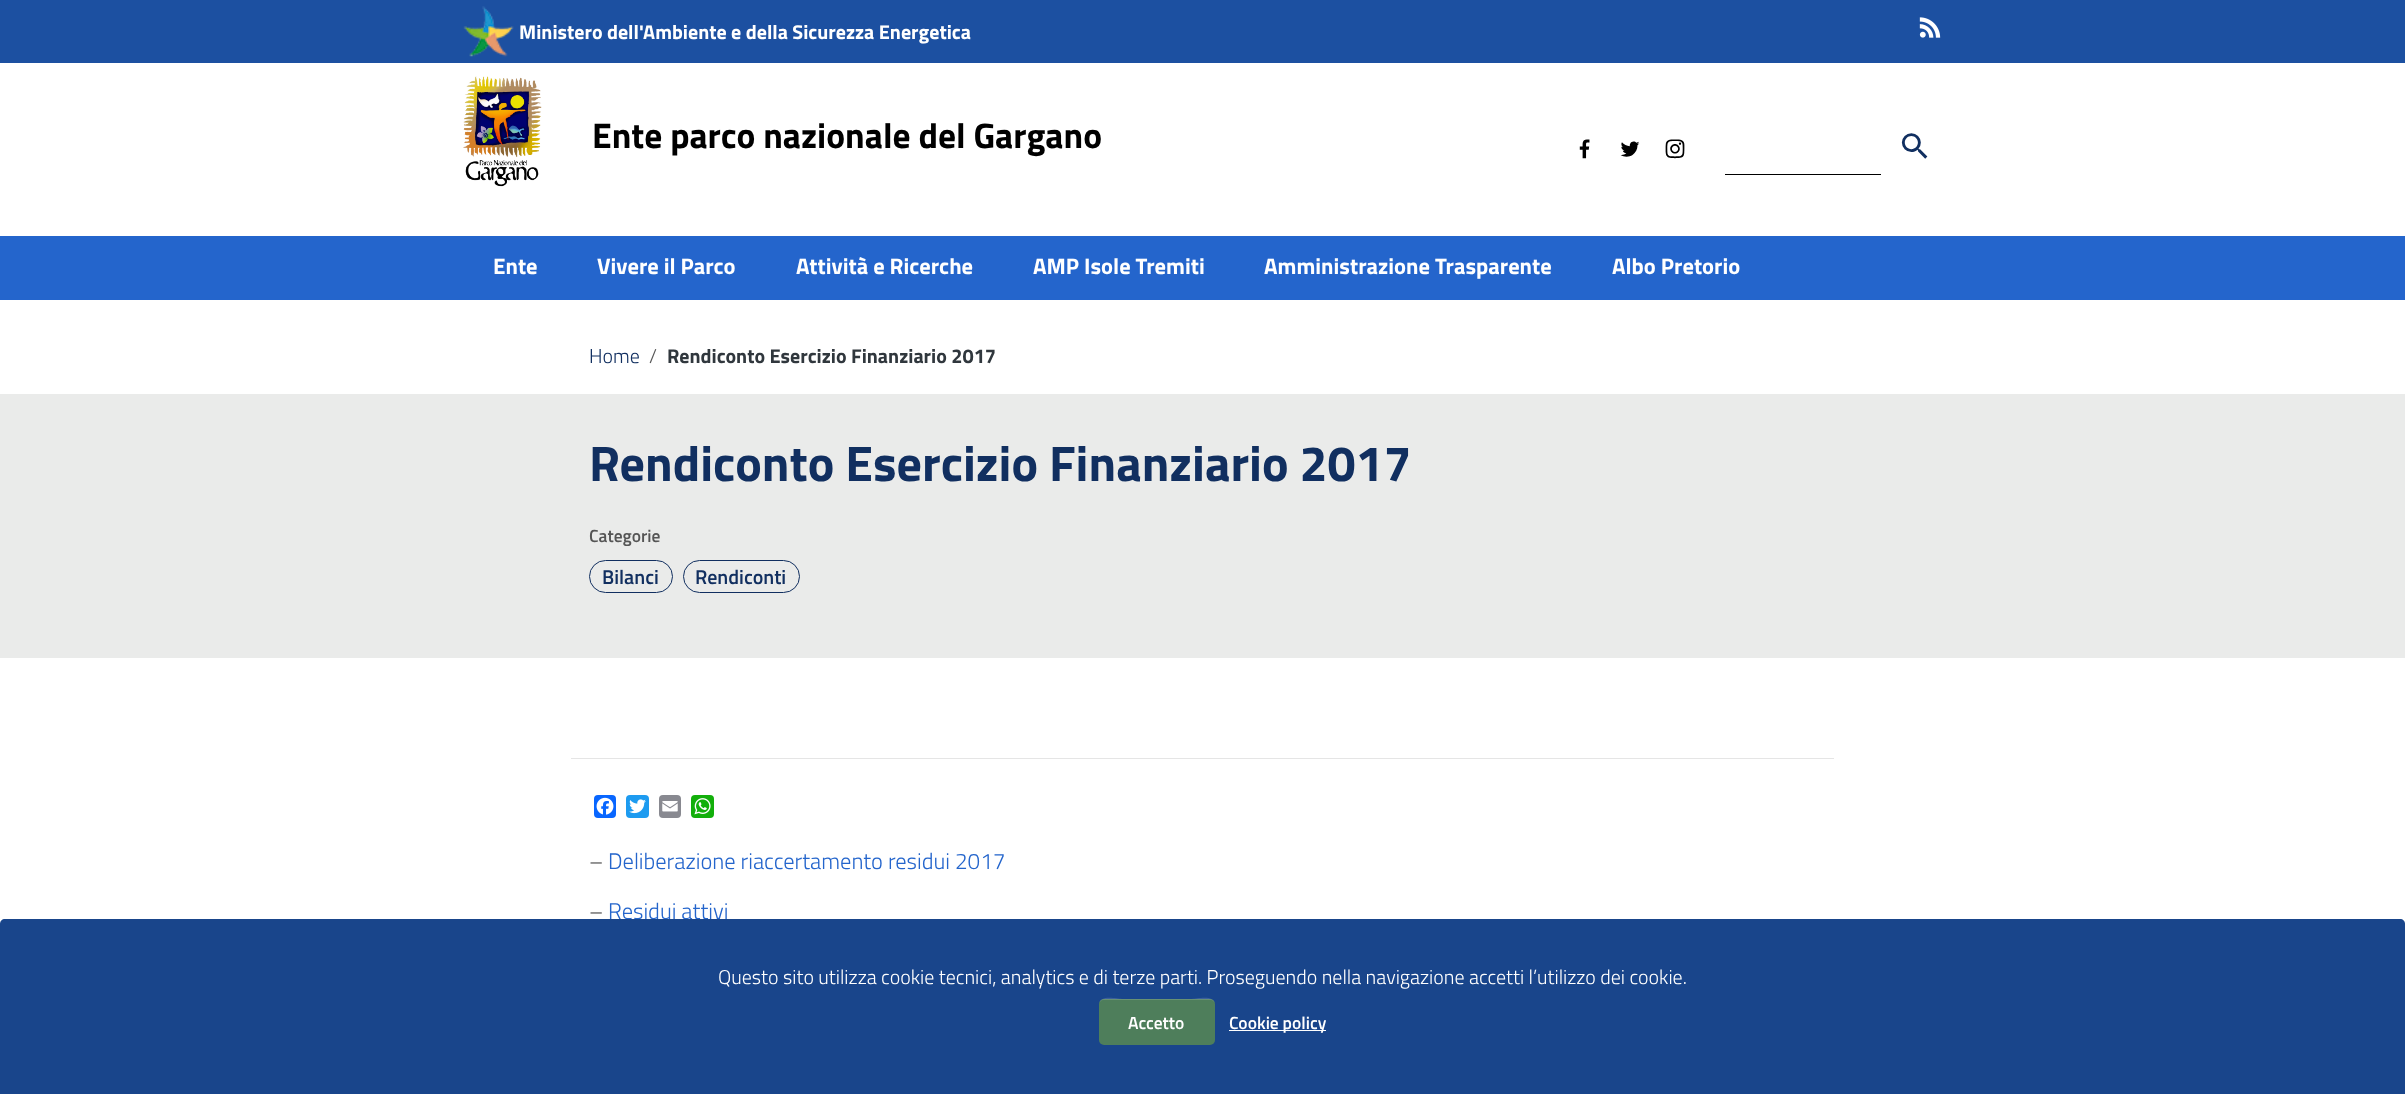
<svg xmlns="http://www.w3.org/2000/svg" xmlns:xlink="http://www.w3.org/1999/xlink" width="2405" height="1094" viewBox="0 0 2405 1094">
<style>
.cls-1{font:bold 20px Titillium Web;fill:#ffffff}
.cls-2{font:bold 35.5px Titillium Web;fill:#000000}
.cls-3{font:bold 22.5px Titillium Web;fill:#ffffff}
.cls-4{font:300 20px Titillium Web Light;fill:#112f60}
.cls-5{font:300 20px Titillium Web Light;fill:#555555}
.cls-6{font:bold 20px Titillium Web;fill:#30373d}
.cls-7{font:bold 50px Titillium Web;fill:#112f60}
.cls-8{font:600 17.5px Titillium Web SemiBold;fill:#555555}
.cls-9{font:600 20px Titillium Web SemiBold;fill:#112f60}
.cls-10{font:300 22.5px Titillium Web Light;fill:#555555}
.cls-11{font:300 22.5px Titillium Web Light;fill:#2465cc}
.cls-12{font:300 20px Titillium Web Light;fill:#ffffff}
.cls-13{font:600 17.5px Titillium Web SemiBold;fill:#ffffff}
</style>
<rect width="100%" height="100%" fill="#ffffff"/>
<rect fill="#1c50a1" x="0" y="0" width="2405" height="63"/>
<image xlink:href="image0.png" x="463" y="6" width="51" height="51"/>
<image xlink:href="image1.png" x="1919" y="17" width="22" height="21"/>
<image xlink:href="image2.png" x="463" y="76" width="79" height="111"/>
<image xlink:href="image3.png" x="1579" y="139" width="11" height="20"/>
<image xlink:href="image4.png" x="1620" y="141" width="20" height="16"/>
<image xlink:href="image5.png" x="1665" y="139" width="20" height="20"/>
<image xlink:href="image6.png" x="1901" y="133" width="27" height="26"/>
<rect fill="#000000" x="1725" y="174" width="156" height="1"/>
<rect fill="#2465cc" x="0" y="236" width="2405" height="64"/>
<rect fill="#eaebea" x="0" y="394" width="2405" height="264"/>
<rect fill="none" stroke="#112f60" x="589.5" y="560.5" width="83" height="32" rx="16"/>
<rect fill="none" stroke="#112f60" x="683.5" y="560.5" width="116" height="32" rx="16"/>
<rect fill="#e5e5e5" x="571" y="758" width="1263" height="1"/>
<rect fill="#0866ff" x="594" y="795" width="22" height="23" rx="4"/>
<image xlink:href="image7.png" x="596" y="797" width="18" height="18"/>
<rect fill="#1d9bf0" x="626" y="795" width="23" height="23" rx="4"/>
<image xlink:href="image8.png" x="629" y="799" width="17" height="15"/>
<rect fill="#888990" x="659" y="795" width="22" height="23" rx="4"/>
<image xlink:href="image9.png" x="662" y="801" width="16" height="11"/>
<rect fill="#12af0a" x="691" y="795" width="23" height="23" rx="4"/>
<image xlink:href="image10.png" x="694" y="798" width="17" height="17"/>
<text class="cls-1" x="519" y="39">Ministero dell'Ambiente e della Sicurezza Energetica</text>
<text class="cls-2" x="592" y="148">Ente parco nazionale del Gargano</text>
<text class="cls-3" x="493" y="274">Ente</text>
<text class="cls-3" x="597" y="274">Vivere il Parco</text>
<text class="cls-3" x="796" y="274">Attività e Ricerche</text>
<text class="cls-3" x="1033" y="274">AMP Isole Tremiti</text>
<text class="cls-3" x="1264" y="274">Amministrazione Trasparente</text>
<text class="cls-3" x="1612" y="274">Albo Pretorio</text>
<text class="cls-4" x="589" y="363">Home</text>
<text class="cls-5" x="649" y="363">/</text>
<text class="cls-6" x="667" y="363">Rendiconto Esercizio Finanziario 2017</text>
<text class="cls-7" x="589" y="481">Rendiconto Esercizio Finanziario 2017</text>
<text class="cls-8" x="589" y="542">Categorie</text>
<text class="cls-9" x="602" y="584">Bilanci</text>
<text class="cls-9" x="695" y="584">Rendiconti</text>
<text class="cls-10" x="589" y="869">–</text>
<text class="cls-11" x="608" y="869">Deliberazione riaccertamento residui 2017</text>
<text class="cls-10" x="589" y="919">–</text>
<text class="cls-11" x="608" y="919">Residui attivi</text>
<path fill="#19458b" d="M5 919H2400C2403 919 2405 921 2405 924V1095H0V924C0 921 2 919 5 919Z"/>
<text class="cls-12" x="718" y="984">Questo sito utilizza cookie tecnici, analytics e di terze parti. Proseguendo nella navigazione accetti l’utilizzo dei cookie.</text>
<rect fill="#4e7e5b" x="1099" y="999" width="116" height="46" rx="5"/>
<path fill="#ffffff" fill-opacity="0.15" d="M1104 1000H1210C1213 1000 1215 1002 1215 1005C1215 994 1197 999 1192 999H1122C1117 999 1099 994 1099 1005C1099 1002 1101 1000 1104 1000Z"/>
<text class="cls-13" x="1128" y="1029">Accetto</text>
<rect fill="#ffffff" x="1229" y="1030" width="97" height="1"/>
<text class="cls-13" x="1229" y="1029">Cookie policy</text>
</svg>
